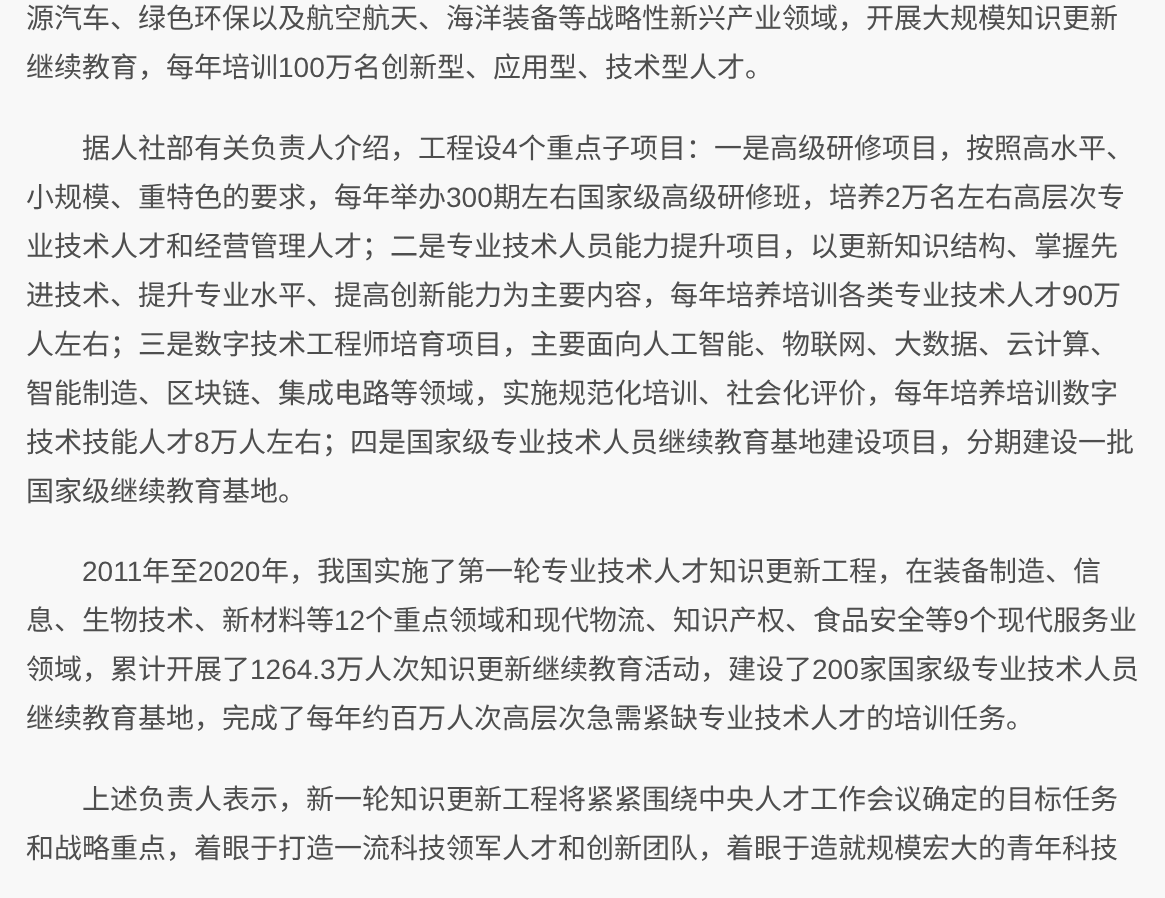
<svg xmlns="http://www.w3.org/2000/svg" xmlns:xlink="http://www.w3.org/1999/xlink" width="1165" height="898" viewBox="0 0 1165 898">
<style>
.cls-1{font:28px Noto Sans CJK SC;fill:#4e4e4e}
.cls-2{font:28px Liberation Sans;fill:#4e4e4e}
</style>
<rect width="100%" height="100%" fill="#f8f8f8"/>
<text class="cls-1"><tspan x="26" y="28">源汽车、绿色环保以及航空航天、海洋装备等战略性新兴产业领域，开展大规模知识更新</tspan><tspan x="26" y="77">继续教育，每年培训</tspan></text>
<text class="cls-2" x="278" y="77">100</text>
<text class="cls-1" x="325" y="77">万名创新型、应用型、技术型人才。</text>
<text class="cls-1" x="82" y="158">据人社部有关负责人介绍，工程设</text>
<text class="cls-2" x="502" y="158">4</text>
<text class="cls-1" x="518" y="158">个重点子项目：一是高级研修项目，按照高水平、</text>
<text class="cls-1" x="26" y="207">小规模、重特色的要求，每年举办</text>
<text class="cls-2" x="446" y="207">300</text>
<text class="cls-1" x="493" y="207">期左右国家级高级研修班，培养</text>
<text class="cls-2" x="885" y="207">2</text>
<text class="cls-1" x="901" y="207">万名左右高层次专</text>
<text class="cls-1"><tspan x="26" y="256">业技术人才和经营管理人才；二是专业技术人员能力提升项目，以更新知识结构、掌握先</tspan><tspan x="26" y="305">进技术、提升专业水平、提高创新能力为主要内容，每年培养培训各类专业技术人才</tspan></text>
<text class="cls-2" x="1062" y="305">90</text>
<text class="cls-1" x="1093" y="305">万</text>
<text class="cls-1"><tspan x="26" y="354">人左右；三是数字技术工程师培育项目，主要面向人工智能、物联网、大数据、云计算、</tspan><tspan x="26" y="403">智能制造、区块链、集成电路等领域，实施规范化培训、社会化评价，每年培养培训数字</tspan><tspan x="26" y="452">技术技能人才</tspan></text>
<text class="cls-2" x="194" y="452">8</text>
<text class="cls-1" x="210" y="452">万人左右；四是国家级专业技术人员继续教育基地建设项目，分期建设一批</text>
<text class="cls-1" x="26" y="501">国家级继续教育基地。</text>
<text class="cls-2" x="82" y="581">2011</text>
<text class="cls-1" x="142" y="581">年至</text>
<text class="cls-2" x="198" y="581">2020</text>
<text class="cls-1" x="261" y="581">年，我国实施了第一轮专业技术人才知识更新工程，在装备制造、信</text>
<text class="cls-1" x="26" y="630">息、生物技术、新材料等</text>
<text class="cls-2" x="334" y="630">12</text>
<text class="cls-1" x="365" y="630">个重点领域和现代物流、知识产权、食品安全等</text>
<text class="cls-2" x="953" y="630">9</text>
<text class="cls-1" x="969" y="630">个现代服务业</text>
<text class="cls-1" x="26" y="679">领域，累计开展了</text>
<text class="cls-2" x="250" y="679">1264.3</text>
<text class="cls-1" x="336" y="679">万人次知识更新继续教育活动，建设了</text>
<text class="cls-2" x="812" y="679">200</text>
<text class="cls-1" x="859" y="679">家国家级专业技术人员</text>
<text class="cls-1" x="26" y="728">继续教育基地，完成了每年约百万人次高层次急需紧缺专业技术人才的培训任务。</text>
<text class="cls-1" x="82" y="809">上述负责人表示，新一轮知识更新工程将紧紧围绕中央人才工作会议确定的目标任务</text>
<text class="cls-1" x="26" y="858">和战略重点，着眼于打造一流科技领军人才和创新团队，着眼于造就规模宏大的青年科技</text>
</svg>
